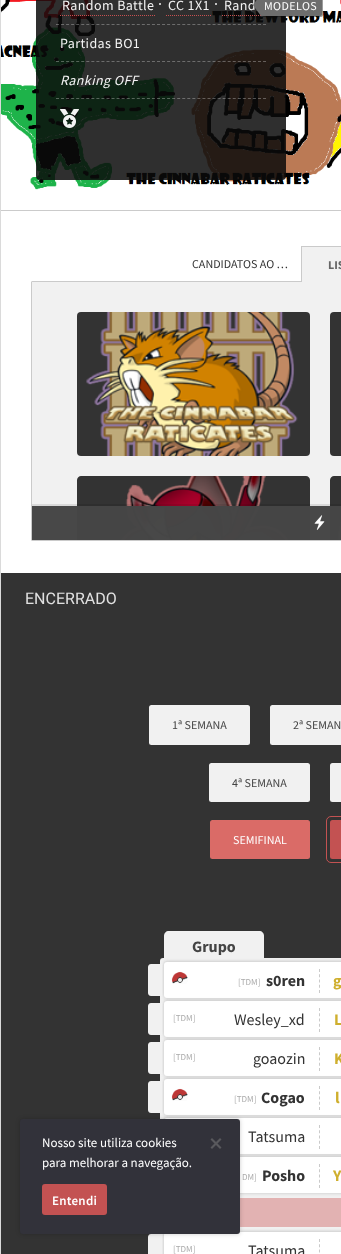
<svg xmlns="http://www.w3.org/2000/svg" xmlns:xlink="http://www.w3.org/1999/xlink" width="341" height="1254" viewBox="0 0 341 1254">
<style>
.cls-1{font:14px Source Sans Pro;letter-spacing:0.4px;fill:#f3f3f3}
.cls-2{font:12px Source Sans Pro;letter-spacing:0.4px;fill:#ffffff}
.cls-3{font:italic 14px Source Sans Pro;letter-spacing:0.4px;fill:#f3f3f3}
.cls-4{font:12px Source Sans Pro;fill:#333333}
.cls-5{font:bold 12px Source Sans Pro;fill:#666666}
.cls-6{font:16px Roboto;fill:#e1e1e1}
.cls-7{font:12px Source Sans Pro;fill:#444444}
.cls-8{font:12px Source Sans Pro;fill:#ffffff}
.cls-9{font:bold 16px Source Sans Pro;fill:#444444}
.cls-10{font:9px Source Sans Pro;fill:#ababab}
.cls-11{font:bold 16px Source Sans Pro;fill:#333333}
.cls-12{font:bold 16px Source Sans Pro;fill:#cfaf2e}
.cls-13{font:16px Source Sans Pro;fill:#333333}
.cls-14{font:13px Source Sans Pro;fill:#ffffff}
.cls-15{font:600 13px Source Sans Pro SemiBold;letter-spacing:0.25px;fill:#ffffff}
</style>
<defs>
<clipPath id="clip1"><rect x="56" y="0" width="210" height="24"/></clipPath>
</defs>
<rect width="100%" height="100%" fill="#ffffff"/>
<rect fill="none" stroke="#dadada" x="0.5" y="-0.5" width="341" height="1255"/>
<image xlink:href="image0.png" x="1" y="0" width="340" height="210"/>
<rect fill="#cbcbcb" x="1" y="210" width="340" height="1"/>
<rect fill="#0b0b0b" fill-opacity="0.85" x="36" y="-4" width="250" height="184" rx="4"/>
<path fill="none" stroke="#ffffff" stroke-opacity="0.3" stroke-dasharray="3 2.05" d="M56 24.5H266"/>
<path fill="none" stroke="#c65151" stroke-dasharray="1 1" d="M60 15.5H156"/>
<path fill="none" stroke="#c65151" stroke-dasharray="1 1" d="M166 15.5H212"/>
<circle fill="#f3f3f3" cx="160" cy="4" r="1"/>
<g clip-path="url(#clip1)">
<path fill="none" stroke="#c65151" stroke-dasharray="1 1" d="M222 15.5H332"/>
</g>
<circle fill="#f3f3f3" cx="216" cy="4" r="1"/>
<rect fill="#0b0b0b" fill-opacity="0.4" filter="blur(0.5px)" x="262" y="-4" width="61" height="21" rx="2"/>
<path fill="#6d6d6d" d="M261-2H320C321-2 322-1 322 0V14C322 15 321 16 320 16H261Z"/>
<path fill="none" stroke="#ffffff" stroke-opacity="0.3" stroke-dasharray="3 2.05" d="M56 61.5H266"/>
<path fill="none" stroke="#ffffff" stroke-opacity="0.3" stroke-dasharray="3 2.05" d="M56 98.5H266"/>
<image xlink:href="image1.png" x="60" y="109" width="19" height="19"/>
<rect fill="#f1f1f1" stroke="#cacaca" x="31.5" y="281.5" width="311" height="259" rx="0.5"/>
<rect fill="#f1f1f1" x="302" y="247" width="39" height="35"/>
<rect fill="#cacaca" x="301" y="246" width="40" height="1"/>
<rect fill="#cacaca" x="301" y="246" width="1" height="36"/>
<rect fill="#333333" x="77" y="312" width="233" height="144" rx="4"/>
<image xlink:href="image2.png" x="86" y="312" width="212" height="144"/>
<rect fill="#333333" x="330" y="312" width="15" height="144" rx="4"/>
<path fill="#333333" d="M81 476H306C308 476 310 478 310 480V540H77V480C77 478 79 476 81 476Z"/>
<image xlink:href="image3.png" x="121" y="476" width="168" height="64"/>
<path fill="#333333" d="M334 476H341C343 476 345 478 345 480V540H330V480C330 478 332 476 334 476Z"/>
<image xlink:href="image4.png" x="337" y="521" width="4" height="19"/>
<rect fill="#0d0d0d" fill-opacity="0.1" x="32" y="504" width="309" height="2"/>
<rect fill="#464646" fill-opacity="0.99" x="32" y="506" width="309" height="34"/>
<image xlink:href="image5.png" x="314" y="515" width="11" height="15"/>
<rect fill="#333333" x="1" y="573" width="340" height="681"/>
<rect fill="#f1f1f1" x="149" y="705" width="101" height="40" rx="2.5"/>
<rect fill="#f1f1f1" x="270" y="705" width="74" height="40" rx="2.5"/>
<rect fill="#f1f1f1" x="209" y="763" width="101" height="39" rx="2.5"/>
<rect fill="#f1f1f1" x="330" y="763" width="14" height="39" rx="2.5"/>
<rect fill="#da6b67" x="210" y="820" width="100" height="39" rx="2.5"/>
<rect fill="#c35252" x="330" y="820" width="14" height="39" rx="2.5"/>
<rect fill="none" stroke="#c35252" x="326.5" y="816.5" width="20" height="46" rx="4.5"/>
<rect fill="#f1f1f1" x="160" y="958" width="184" height="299" rx="3"/>
<path fill="#f1f1f1" d="M169 931H259C262 931 264 933 264 936V962H164V936C164 933 166 931 169 931Z"/>
<rect fill="#ffffff" fill-opacity="0.12" x="166" y="931" width="96" height="1"/>
<rect fill="#888888" fill-opacity="0.2" filter="blur(1.5px)" x="164" y="963" width="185" height="36" rx="3"/>
<rect fill="#888888" fill-opacity="0.3" filter="blur(1.5px)" x="164" y="961" width="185" height="36" rx="3"/>
<rect fill="#ffffff" x="164" y="962" width="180" height="36" rx="3"/>
<path fill="#f1f1f1" d="M148 993V967C148 965.5 149 964 151 964H162V996H151C149 996 148 994.5 148 993Z"/>
<image xlink:href="image6.png" x="171" y="971" width="17" height="13"/>
<path fill="none" stroke="#cacaca" stroke-dasharray="3 2.25" d="M319.5 969V993"/>
<rect fill="#888888" fill-opacity="0.2" filter="blur(1.5px)" x="164" y="1002" width="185" height="36" rx="3"/>
<rect fill="#888888" fill-opacity="0.3" filter="blur(1.5px)" x="164" y="1000" width="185" height="36" rx="3"/>
<rect fill="#ffffff" x="164" y="1001" width="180" height="36" rx="3"/>
<path fill="#f1f1f1" d="M148 1032V1006C148 1004.5 149 1003 151 1003H162V1035H151C149 1035 148 1033.5 148 1032Z"/>
<path fill="none" stroke="#cacaca" stroke-dasharray="3 2.25" d="M319.5 1008V1032"/>
<rect fill="#888888" fill-opacity="0.2" filter="blur(1.5px)" x="164" y="1041" width="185" height="36" rx="3"/>
<rect fill="#888888" fill-opacity="0.3" filter="blur(1.5px)" x="164" y="1039" width="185" height="36" rx="3"/>
<rect fill="#ffffff" x="164" y="1040" width="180" height="36" rx="3"/>
<path fill="#f1f1f1" d="M148 1071V1045C148 1043.5 149 1042 151 1042H162V1074H151C149 1074 148 1072.5 148 1071Z"/>
<path fill="none" stroke="#cacaca" stroke-dasharray="3 2.25" d="M319.5 1047V1071"/>
<rect fill="#888888" fill-opacity="0.2" filter="blur(1.5px)" x="164" y="1080" width="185" height="36" rx="3"/>
<rect fill="#888888" fill-opacity="0.3" filter="blur(1.5px)" x="164" y="1078" width="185" height="36" rx="3"/>
<rect fill="#ffffff" x="164" y="1079" width="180" height="36" rx="3"/>
<path fill="#f1f1f1" d="M148 1110V1084C148 1082.5 149 1081 151 1081H162V1113H151C149 1113 148 1111.5 148 1110Z"/>
<image xlink:href="image6.png" x="171" y="1088" width="17" height="13"/>
<path fill="none" stroke="#cacaca" stroke-dasharray="3 2.25" d="M319.5 1086V1110"/>
<rect fill="#888888" fill-opacity="0.2" filter="blur(1.5px)" x="164" y="1119" width="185" height="36" rx="3"/>
<rect fill="#888888" fill-opacity="0.3" filter="blur(1.5px)" x="164" y="1117" width="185" height="36" rx="3"/>
<rect fill="#ffffff" x="164" y="1118" width="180" height="36" rx="3"/>
<path fill="none" stroke="#cacaca" stroke-dasharray="3 2.25" d="M319.5 1125V1149"/>
<rect fill="#e2b2b2" x="240" y="1198" width="101" height="29"/>
<rect fill="#888888" fill-opacity="0.2" filter="blur(1.5px)" x="164" y="1158" width="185" height="36" rx="3"/>
<rect fill="#888888" fill-opacity="0.3" filter="blur(1.5px)" x="164" y="1156" width="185" height="36" rx="3"/>
<rect fill="#ffffff" x="240" y="1157" width="101" height="36"/>
<path fill="none" stroke="#cacaca" stroke-dasharray="3 2.25" d="M319.5 1164V1188"/>
<rect fill="#888888" fill-opacity="0.2" filter="blur(1.5px)" x="164" y="1233" width="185" height="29" rx="3"/>
<rect fill="#888888" fill-opacity="0.3" filter="blur(1.5px)" x="164" y="1231" width="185" height="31" rx="3"/>
<rect fill="#ffffff" x="164" y="1232" width="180" height="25" rx="3"/>
<path fill="#f1f1f1" d="M148 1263V1237C148 1235.5 149 1234 151 1234H162V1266H151C149 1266 148 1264.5 148 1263Z"/>
<path fill="none" stroke="#cacaca" stroke-dasharray="3 2.25" d="M319.5 1239V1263"/>
<rect fill="#000000" fill-opacity="0.2" filter="blur(2px)" x="20" y="1119" width="220" height="115" rx="3"/>
<rect fill="#32323a" x="20" y="1119" width="220" height="115" rx="3"/>
<path fill="#59595d" d="M220 1138L221.5 1139.5L212 1149L210.5 1147.5Z"/>
<path fill="#59595d" d="M210.5 1139.5L212 1138L221.5 1147.5L220 1149Z"/>
<rect fill="#c35252" x="42" y="1184" width="65" height="31" rx="3"/>
<text class="cls-1" x="62" y="10">Random Battle</text>
<text class="cls-1" x="168" y="10">CC 1X1</text>
<text class="cls-1" x="224" y="10">Rand</text>
<path fill="#6d6d6d" d="M261-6V16L253 5Z"/>
<text class="cls-2" x="264" y="10">MODELOS</text>
<text class="cls-1" x="60" y="48">Partidas BO1</text>
<text class="cls-3" x="60" y="85">Ranking OFF</text>
<text class="cls-4" x="192" y="268">CANDIDATOS AO …</text>
<text class="cls-5" x="328" y="269">LIS</text>
<text class="cls-6" x="25" y="604">ENCERRADO</text>
<text class="cls-7" x="172" y="729">1ª SEMANA</text>
<text class="cls-7" x="293" y="729">2ª SEMAN</text>
<text class="cls-7" x="232" y="787">4ª SEMANA</text>
<text class="cls-8" x="233" y="844">SEMIFINAL</text>
<text class="cls-9" x="192" y="952">Grupo</text>
<text class="cls-10" x="238" y="985">[TDM]</text>
<text class="cls-11" x="266" y="986">s0ren</text>
<text class="cls-12" x="333" y="986">g</text>
<text class="cls-10" x="173" y="1021">[TDM]</text>
<text class="cls-13" x="234" y="1025">Wesley_xd</text>
<text class="cls-12" x="334" y="1025">L</text>
<text class="cls-10" x="173" y="1060">[TDM]</text>
<text class="cls-13" x="253" y="1064">goaozin</text>
<text class="cls-12" x="334" y="1064">K</text>
<text class="cls-10" x="234" y="1102">[TDM]</text>
<text class="cls-11" x="261" y="1103">Cogao</text>
<text class="cls-12" x="335" y="1103">l</text>
<text class="cls-13" x="248" y="1142">Tatsuma</text>
<text class="cls-10" x="242" y="1180">DM]</text>
<text class="cls-11" x="262" y="1181">Posho</text>
<text class="cls-12" x="333" y="1181">Y</text>
<text class="cls-10" x="173" y="1252">[TDM]</text>
<text class="cls-13" x="248" y="1256">Tatsuma</text>
<text class="cls-14"><tspan x="42" y="1147">Nosso site utiliza cookies</tspan><tspan x="42" y="1167">para melhorar a navegação.</tspan></text>
<text class="cls-15" x="52" y="1205">Entendi</text>
</svg>
